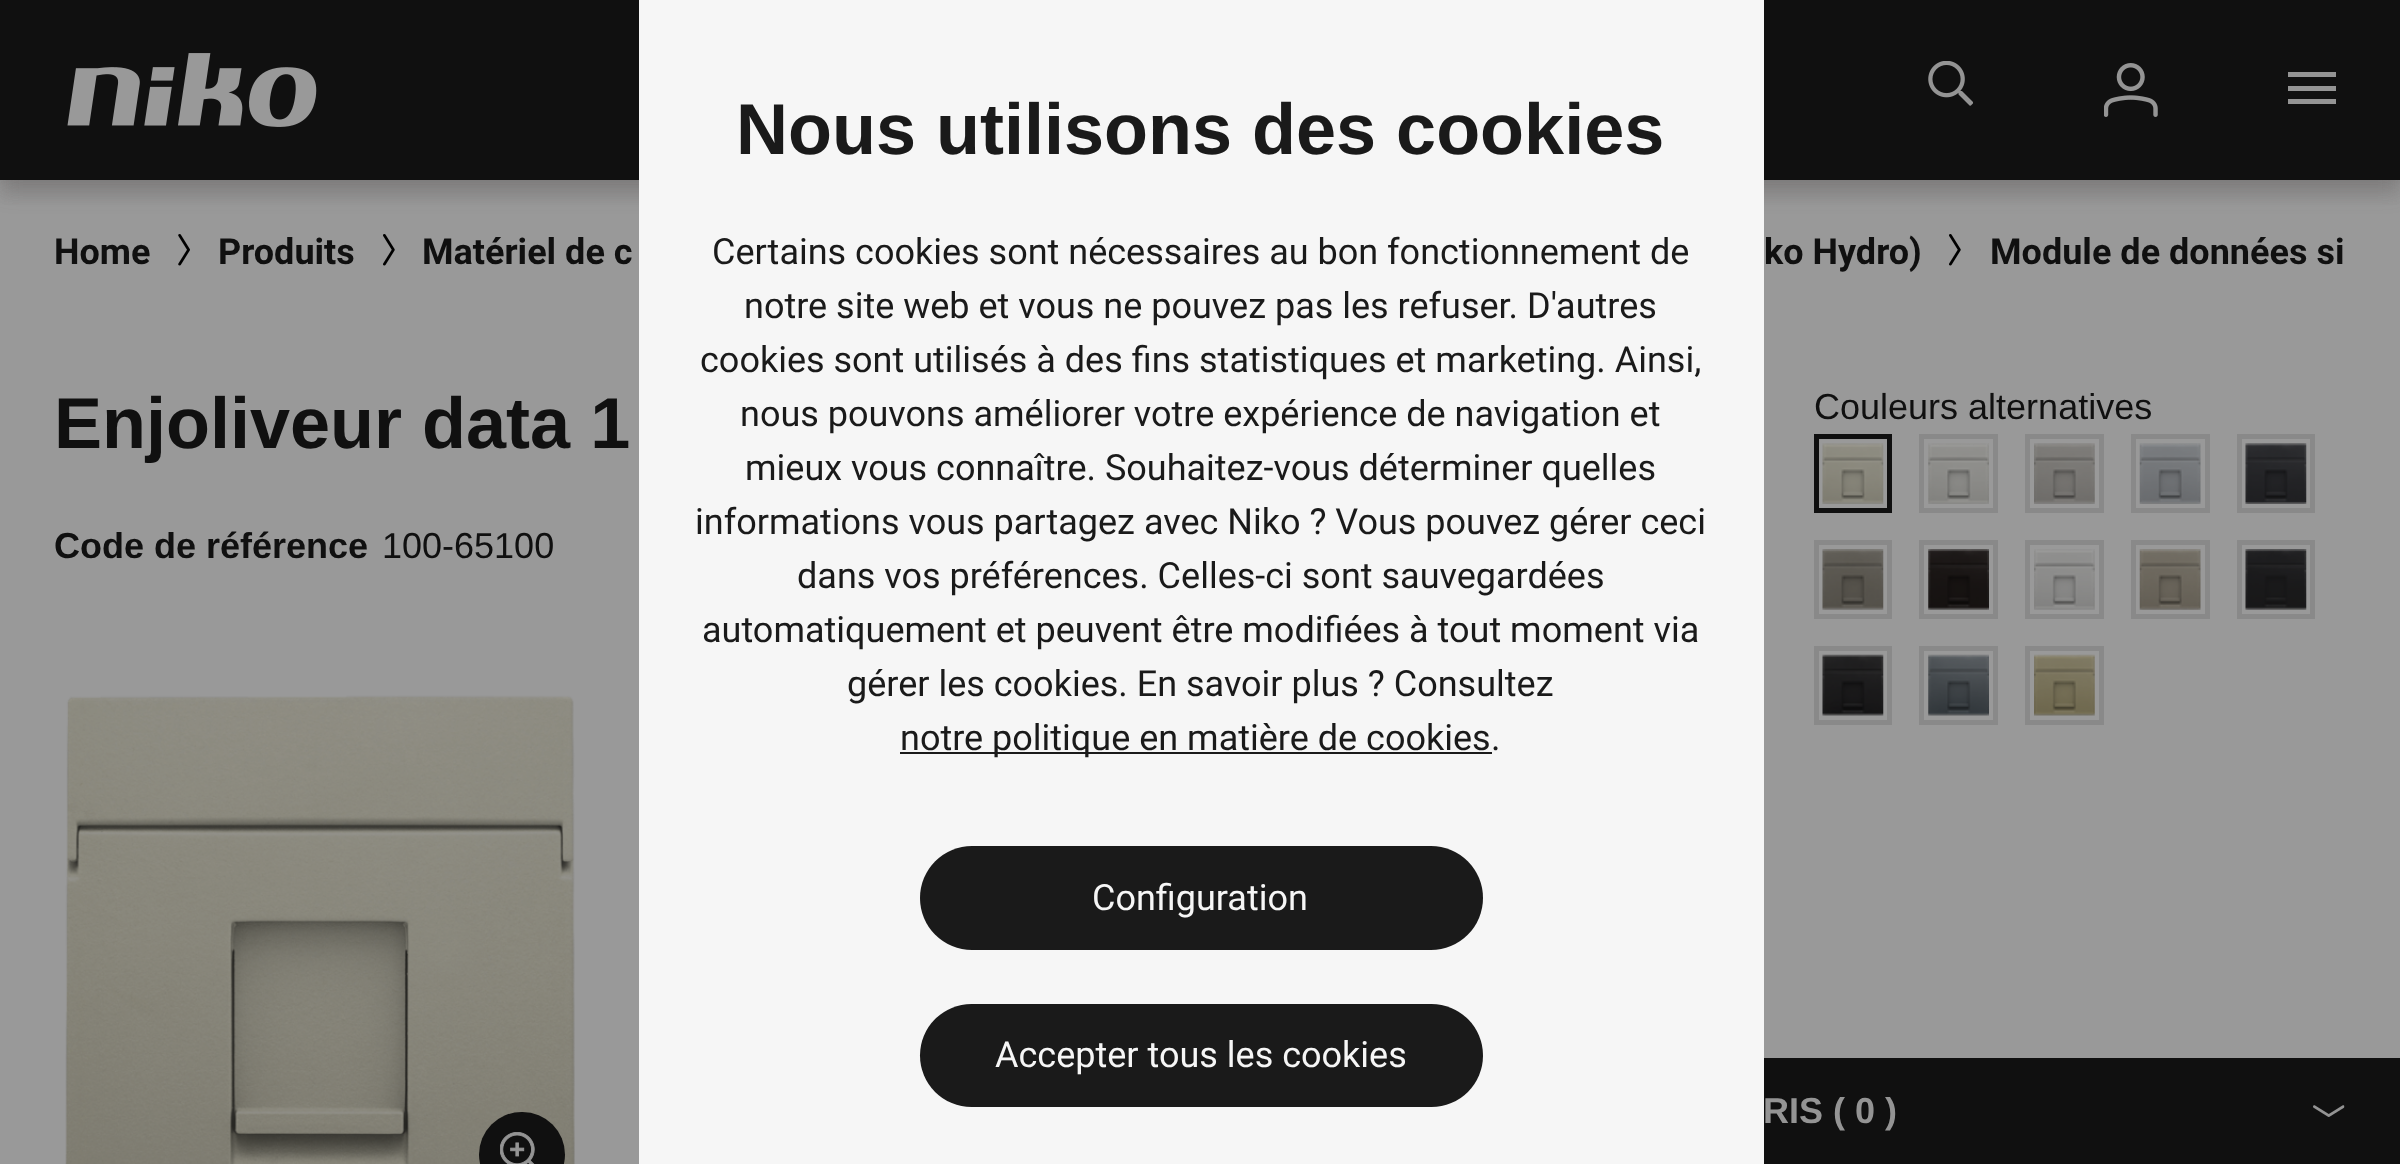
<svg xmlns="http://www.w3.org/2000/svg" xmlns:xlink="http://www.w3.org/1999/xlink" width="2400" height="1164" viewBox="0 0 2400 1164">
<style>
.cls-1{font:bold 72px Liberation Sans;fill:#1a1a1a}
.cls-2{font:36px Roboto;fill:#1a1a1a}
.cls-3{font:36px Roboto;fill:#f6f6f6}
.cls-4{font:bold 36px Roboto;fill:#101010}
.cls-5{font:bold 72px Liberation Sans;fill:#101010}
.cls-6{font:bold 36px Liberation Sans;fill:#101010}
.cls-7{font:36px Liberation Sans;fill:#101010}
.cls-8{font:bold 36px Liberation Sans;fill:#949494}
</style>
<defs>
<clipPath id="clip1"><rect x="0" y="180" width="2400" height="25"/></clipPath>
</defs>
<rect width="100%" height="100%" fill="#999999"/>
<rect fill="#454141" fill-opacity="0.2" filter="blur(11px)" x="0" y="11" width="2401" height="180"/>
<rect fill="#101010" x="0" y="0" width="2400" height="180"/>
<g clip-path="url(#clip1)">
<rect fill="#454141" fill-opacity="0.2" filter="blur(11px)" x="0" y="11" width="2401" height="180"/>
</g>
<image xlink:href="image0.png" x="67" y="53" width="250" height="74"/>
<rect fill="#949494" x="2288" y="72" width="48" height="5"/>
<rect fill="#949494" x="2288" y="86" width="48" height="5"/>
<rect fill="#949494" x="2288" y="99" width="48" height="5"/>
<image xlink:href="image1.png" x="1928" y="61" width="45" height="45"/>
<image xlink:href="image2.png" x="2104" y="63" width="54" height="54"/>
<rect fill="#f6f6f6" x="639" y="0" width="1125" height="1164"/>
<rect fill="#1a1a1a" x="900" y="752" width="592" height="2"/>
<rect fill="#1a1a1a" x="920" y="846" width="563" height="104" rx="52"/>
<rect fill="#1a1a1a" x="920" y="1004" width="563" height="103" rx="51.5"/>
<image xlink:href="image3.png" x="178" y="234" width="12" height="32"/>
<image xlink:href="image4.png" x="383" y="234" width="12" height="32"/>
<image xlink:href="image4.png" x="1949" y="234" width="12" height="32"/>
<image xlink:href="image5.png" x="65" y="695" width="510" height="469"/>
<rect fill="#101010" x="479" y="1112" width="86" height="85" rx="42.5"/>
<image xlink:href="image6.png" x="500" y="1132" width="35" height="32"/>
<rect fill="none" stroke="#101010" stroke-width="5" x="1816.5" y="436.5" width="73" height="74"/>
<image xlink:href="image7.png" x="1822" y="443" width="62" height="61"/>
<rect fill="none" stroke="#898989" stroke-width="5" x="1921.5" y="436.5" width="74" height="74"/>
<image xlink:href="image8.png" x="1928" y="443" width="61" height="61"/>
<rect fill="none" stroke="#898989" stroke-width="5" x="2027.5" y="436.5" width="74" height="74"/>
<image xlink:href="image9.png" x="2034" y="443" width="61" height="61"/>
<rect fill="none" stroke="#898989" stroke-width="5" x="2133.5" y="436.5" width="74" height="74"/>
<image xlink:href="image10.png" x="2139" y="443" width="62" height="61"/>
<rect fill="none" stroke="#898989" stroke-width="5" x="2239.5" y="436.5" width="73" height="74"/>
<image xlink:href="image11.png" x="2245" y="443" width="62" height="61"/>
<rect fill="none" stroke="#898989" stroke-width="5" x="1816.5" y="542.5" width="73" height="74"/>
<image xlink:href="image12.png" x="1822" y="549" width="62" height="61"/>
<rect fill="none" stroke="#898989" stroke-width="5" x="1921.5" y="542.5" width="74" height="74"/>
<image xlink:href="image13.png" x="1928" y="549" width="61" height="61"/>
<rect fill="none" stroke="#898989" stroke-width="5" x="2027.5" y="542.5" width="74" height="74"/>
<image xlink:href="image14.png" x="2034" y="549" width="61" height="61"/>
<rect fill="none" stroke="#898989" stroke-width="5" x="2133.5" y="542.5" width="74" height="74"/>
<image xlink:href="image15.png" x="2139" y="549" width="62" height="61"/>
<rect fill="none" stroke="#898989" stroke-width="5" x="2239.5" y="542.5" width="73" height="74"/>
<image xlink:href="image16.png" x="2245" y="549" width="62" height="61"/>
<rect fill="none" stroke="#898989" stroke-width="5" x="1816.5" y="648.5" width="73" height="74"/>
<image xlink:href="image17.png" x="1822" y="654" width="62" height="62"/>
<rect fill="none" stroke="#898989" stroke-width="5" x="1921.5" y="648.5" width="74" height="74"/>
<image xlink:href="image18.png" x="1928" y="654" width="61" height="62"/>
<rect fill="none" stroke="#898989" stroke-width="5" x="2027.5" y="648.5" width="74" height="74"/>
<image xlink:href="image19.png" x="2034" y="654" width="61" height="62"/>
<rect fill="#101010" x="1764" y="1058" width="636" height="106"/>
<image xlink:href="image20.png" x="2313" y="1105" width="32" height="12"/>
<text class="cls-1" x="736" y="154">Nous utilisons des cookies</text>
<text class="cls-2" x="712" y="264">Certains cookies sont nécessaires au bon fonctionnement de</text>
<text class="cls-2" x="744" y="318">notre site web et vous ne pouvez pas les refuser. D'autres</text>
<text class="cls-2" x="700" y="372">cookies sont utilisés à des fins statistiques et marketing. Ainsi,</text>
<text class="cls-2" x="740" y="426">nous pouvons améliorer votre expérience de navigation et</text>
<text class="cls-2" x="745" y="480">mieux vous connaître. Souhaitez-vous déterminer quelles</text>
<text class="cls-2" x="695" y="534">informations vous partagez avec Niko ? Vous pouvez gérer ceci</text>
<text class="cls-2" x="797" y="588">dans vos préférences. Celles-ci sont sauvegardées</text>
<text class="cls-2" x="702" y="642">automatiquement et peuvent être modifiées à tout moment via</text>
<text class="cls-2" x="847" y="696">gérer les cookies. En savoir plus ? Consultez</text>
<text class="cls-2" x="900" y="750">notre politique en matière de cookies</text>
<text class="cls-2" x="1491" y="750">.</text>
<text class="cls-3" x="1092" y="910">Configuration</text>
<text class="cls-3" x="995" y="1067">Accepter tous les cookies</text>
<text class="cls-4" x="54" y="264">Home</text>
<text class="cls-4" x="218" y="264">Produits</text>
<text class="cls-4" x="422" y="264">Matériel de c</text>
<text class="cls-4" x="1764" y="264">ko Hydro)</text>
<text class="cls-4" x="1990" y="264">Module de données si</text>
<text class="cls-5" x="54" y="448">Enjoliveur data 1</text>
<text class="cls-6" x="54" y="558">Code de référence</text>
<text class="cls-7" x="382" y="558">100-65100</text>
<text class="cls-7" x="1814" y="419">Couleurs alternatives</text>
<text class="cls-8" x="1763" y="1123">RIS ( 0 )</text>
</svg>
